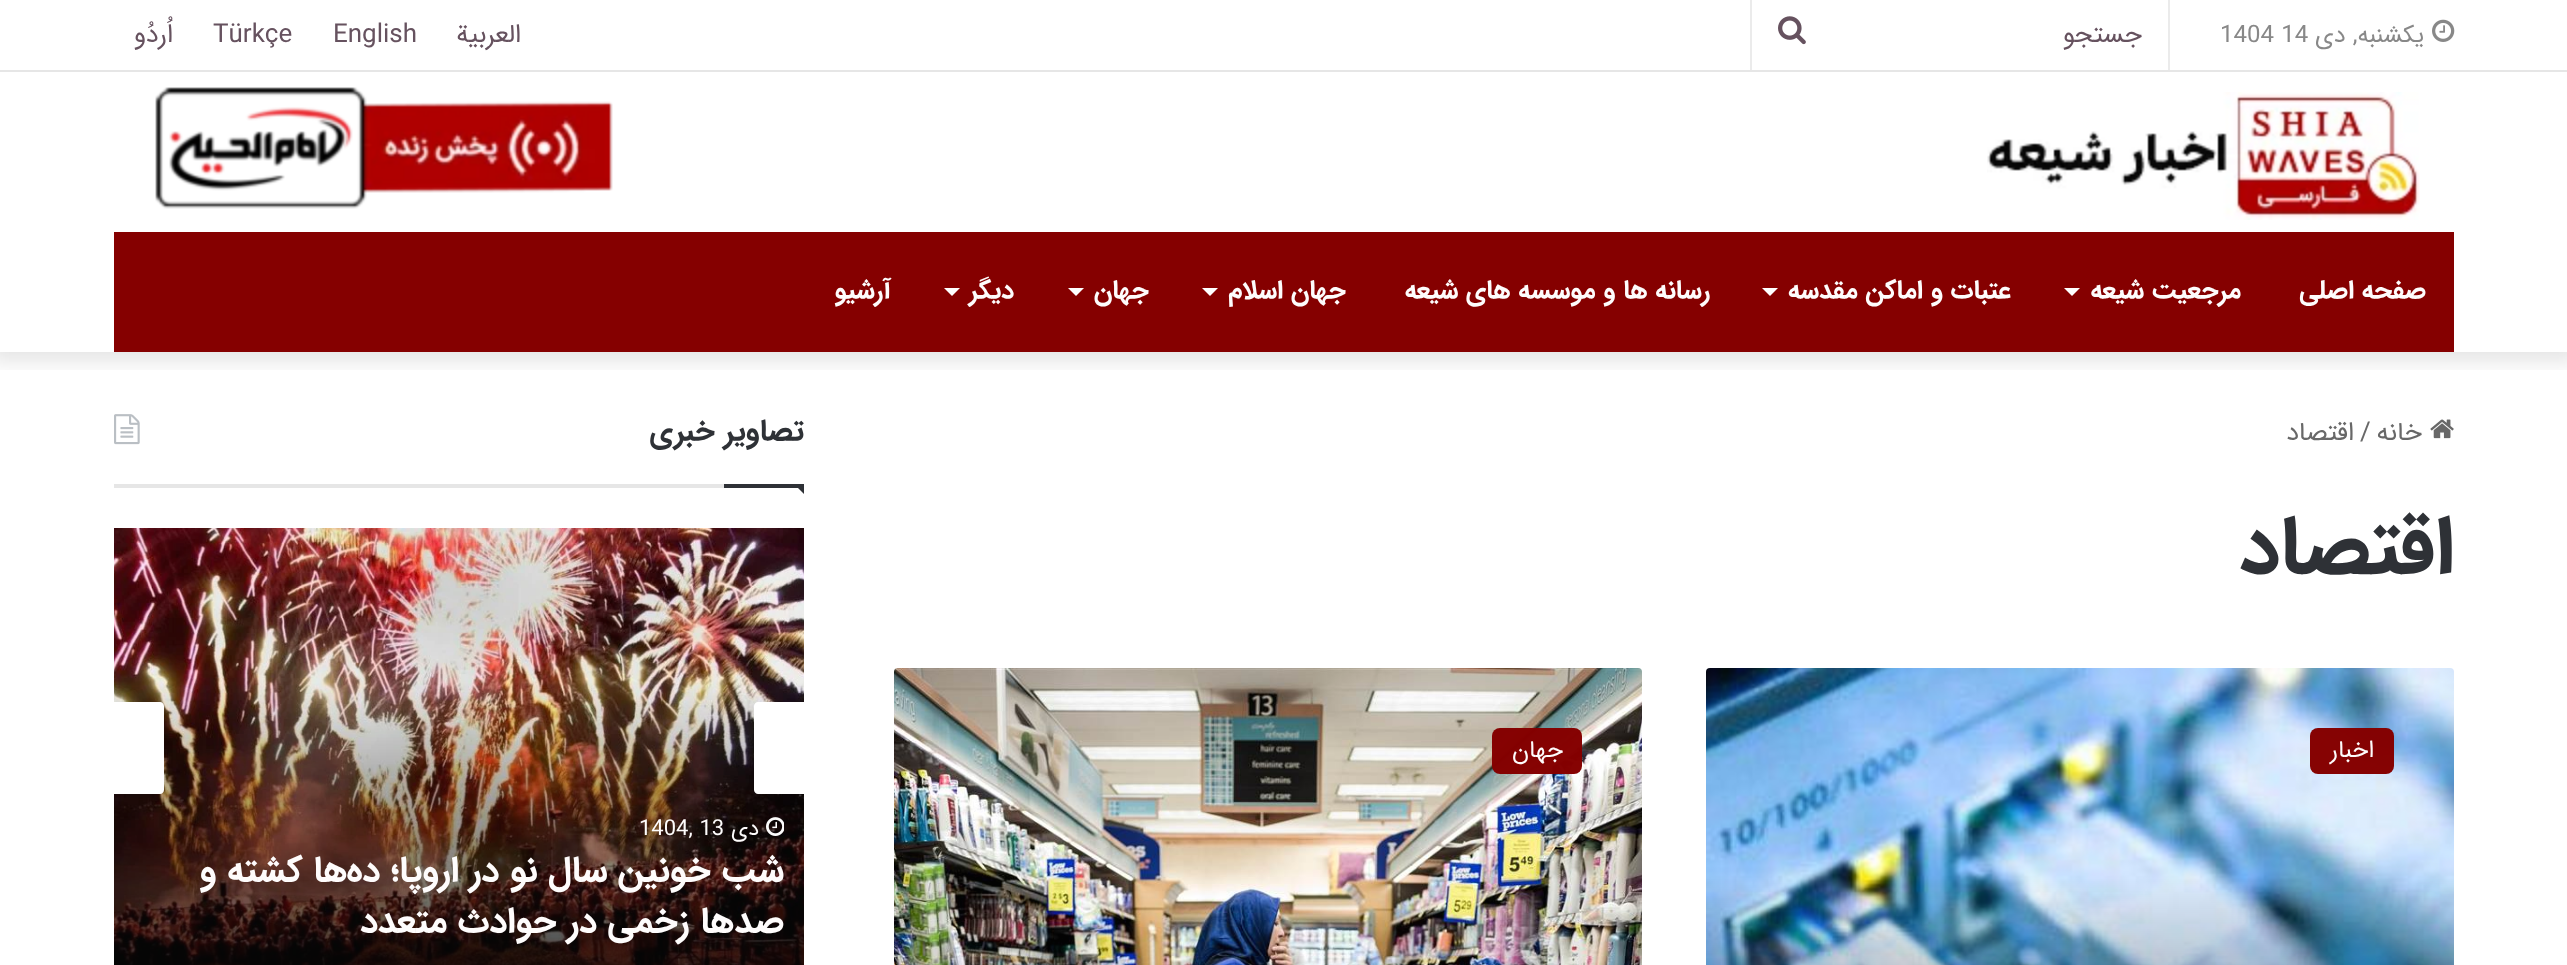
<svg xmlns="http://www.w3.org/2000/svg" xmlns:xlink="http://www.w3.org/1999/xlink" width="2567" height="965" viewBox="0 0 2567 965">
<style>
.cls-1{font:24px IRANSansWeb;direction:rtl;fill:#888888}
.cls-2{font:24px IRANSansWeb;fill:#888888}
.cls-3{font:26px IRANSansWeb;direction:rtl;fill:#66525f}
.cls-4{font:26px IRANSansWeb;fill:#66525f}
.cls-5{font:bold 26px IRANSansWeb;direction:rtl;fill:#fefcfc}
.cls-6{font:26px IRANSansWeb;direction:rtl;fill:#686868}
.cls-7{font:26px IRANSansWeb;fill:#686868}
.cls-8{font:bold 82px IRANSansWeb;direction:rtl;fill:#2e3136}
.cls-9{font:24px IRANSansWeb;direction:rtl;fill:#fefcfc}
.cls-10{font:bold 30px IRANSansWeb;direction:rtl;fill:#2e3136}
.cls-11{font:22px IRANSansWeb;direction:rtl;fill:#fefcfc}
.cls-12{font:22px IRANSansWeb;fill:#fefcfc}
.cls-13{font:bold 36px IRANSansWeb;direction:rtl;fill:#fefcfc}
</style>
<defs>
<clipPath id="clip1"><rect x="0" y="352" width="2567" height="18"/></clipPath>
</defs>
<rect width="100%" height="100%" fill="#ffffff"/>
<g clip-path="url(#clip1)">
<rect fill="#000000" fill-opacity="0.1" filter="blur(10px)" x="-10" y="-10" width="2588" height="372"/>
</g>
<rect fill="#e6e6e6" x="0" y="70" width="2567" height="2"/>
<image xlink:href="image0.png" x="2432" y="19" width="23" height="23"/>
<rect fill="#ebebeb" x="2168" y="0" width="2" height="70"/>
<rect fill="#ebebeb" x="1750" y="0" width="2" height="70"/>
<image xlink:href="image1.png" x="1778" y="16" width="28" height="29"/>
<image xlink:href="image2.png" x="1987" y="92" width="433" height="128"/>
<image xlink:href="image3.png" x="155" y="87" width="458" height="122"/>
<rect fill="#850000" x="114" y="232" width="2340" height="120"/>
<path fill="#ffffff" d="M2064 288H2080L2072 296Z"/>
<path fill="#ffffff" d="M1762 288H1778L1770 296Z"/>
<path fill="#ffffff" d="M1202 288H1218L1210 296Z"/>
<path fill="#ffffff" d="M1068 288H1084L1076 296Z"/>
<path fill="#ffffff" d="M944 288H960L952 296Z"/>
<image xlink:href="image4.png" x="2430" y="419" width="24" height="20"/>
<image xlink:href="image5.png" x="1706" y="668" width="748" height="297"/>
<rect fill="#850000" fill-opacity="0.99" x="2310" y="728" width="84" height="46" rx="8"/>
<image xlink:href="image6.png" x="894" y="668" width="748" height="297"/>
<rect fill="#850000" fill-opacity="0.99" x="1492" y="728" width="90" height="46" rx="8"/>
<rect fill="#e6e6e6" x="114" y="484" width="610" height="4"/>
<image xlink:href="image7.png" x="114" y="414" width="26" height="31"/>
<path fill="#2e3136" d="M794 484H804V494Z"/>
<rect fill="#2e3136" x="724" y="484" width="80" height="4"/>
<image xlink:href="image8.png" x="114" y="528" width="690" height="437"/>
<path fill="#ffffff" d="M804 794H758C756 794 754 792 754 790V706C754 704 756 702 758 702H804Z"/>
<path fill="#ffffff" d="M160 794H114V702H160C162 702 164 704 164 706V790C164 792 162 794 160 794Z"/>
<image xlink:href="image9.png" x="766" y="817" width="18" height="19"/>
<text class="cls-1" x="2424" y="42">یکشنبه, دی</text>
<text class="cls-2" x="2220" y="42">1404 14</text>
<text class="cls-3" x="2142" y="42">جستجو</text>
<text class="cls-3" x="521" y="42">العربية</text>
<text class="cls-4" x="333" y="42">English</text>
<text class="cls-4" x="213" y="42">Türkçe</text>
<text class="cls-3" x="173" y="42">اُردُو</text>
<text class="cls-5" x="2426" y="298">صفحه اصلی</text>
<text class="cls-5" x="2241" y="298">مرجعیت شیعه</text>
<text class="cls-5" x="2011" y="298">عتبات و اماکن مقدسه</text>
<text class="cls-5" x="1710" y="298">رسانه ها و موسسه های شیعه</text>
<text class="cls-5" x="1346" y="298">جهان اسلام</text>
<text class="cls-5" x="1149" y="298">جهان</text>
<text class="cls-5" x="1014" y="298">دیگر</text>
<text class="cls-5" x="891" y="298">آرشیو</text>
<text class="cls-6" x="2422" y="440">خانه</text>
<text class="cls-7" x="2360" y="440">/</text>
<text class="cls-6" x="2354" y="440">اقتصاد</text>
<text class="cls-8" x="2454" y="572">اقتصاد</text>
<text class="cls-9" x="2374" y="757">اخبار</text>
<text class="cls-9" x="1563" y="757">جهان</text>
<text class="cls-10" x="804" y="440">تصاویر خبری</text>
<text class="cls-11" x="759" y="835">دی</text>
<text class="cls-12" x="639" y="835">1404, 13</text>
<text class="cls-13"><tspan x="784" y="881">شب خونین سال نو در اروپا؛ ده‌ها کشته و</tspan><tspan x="784" y="932">صدها زخمی در حوادث متعدد</tspan></text>
</svg>
